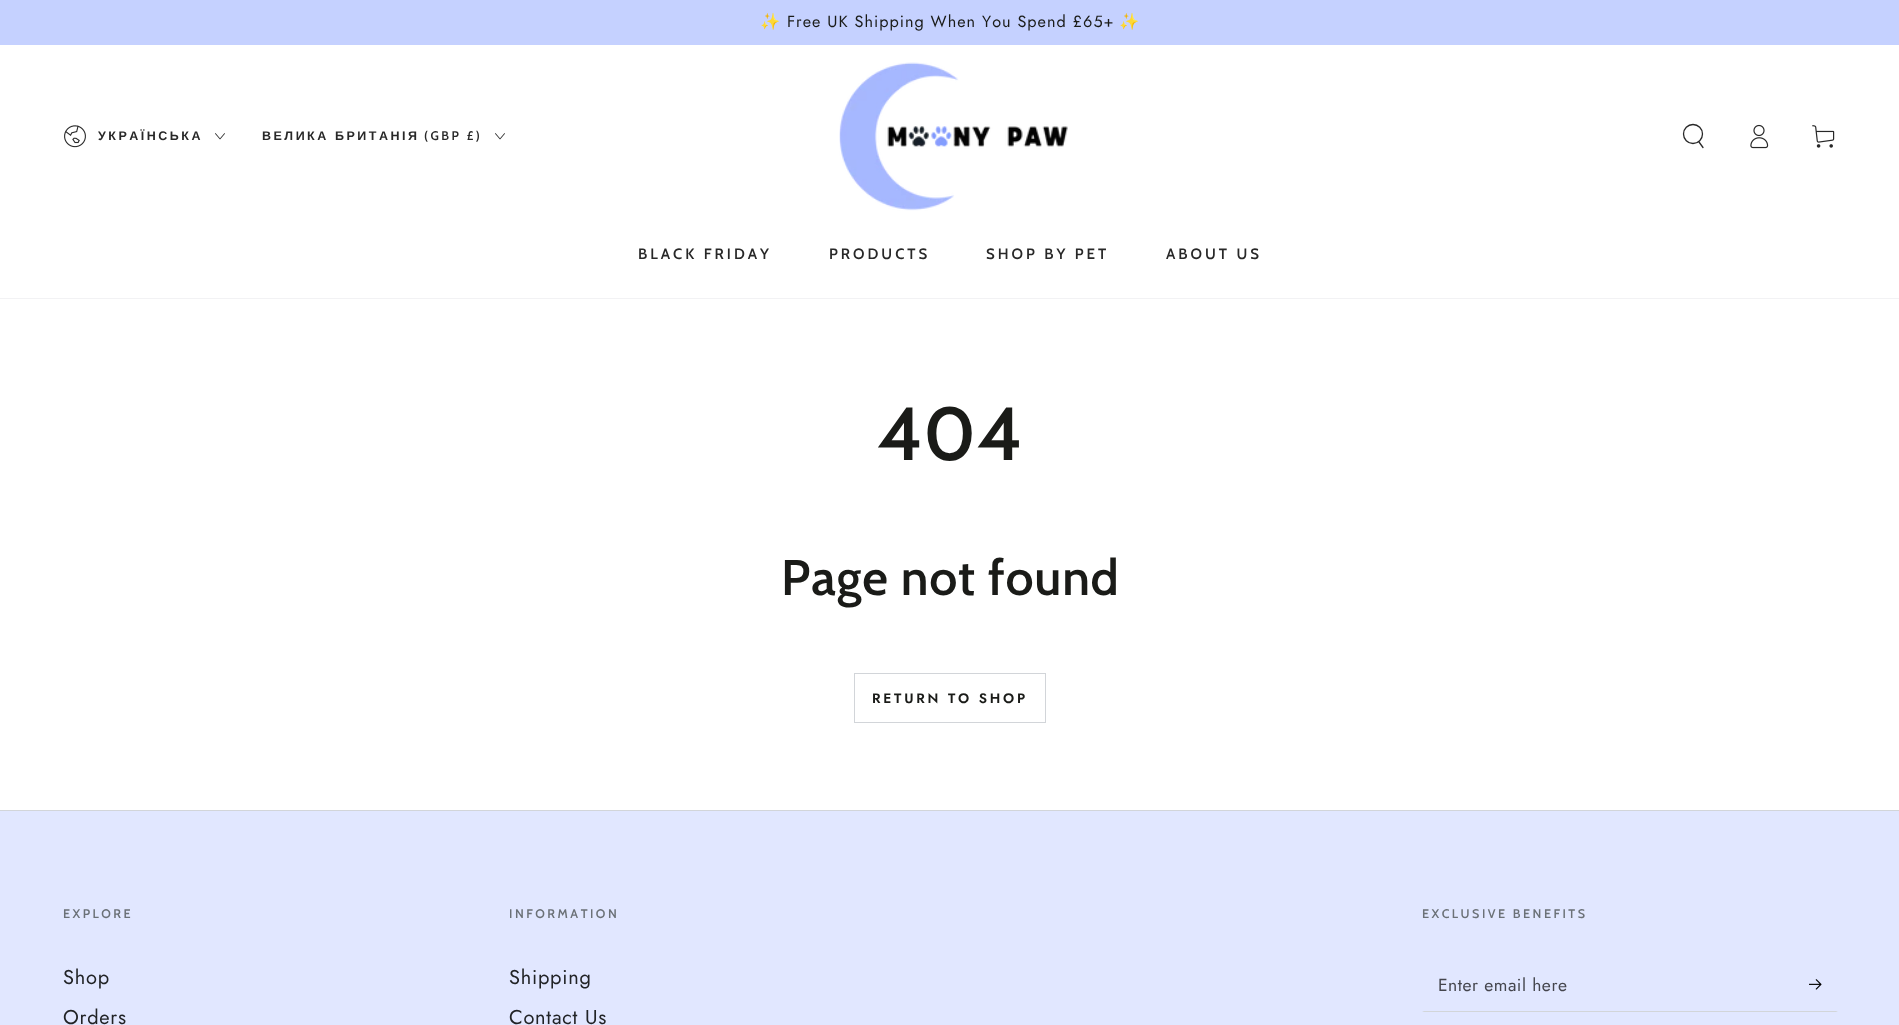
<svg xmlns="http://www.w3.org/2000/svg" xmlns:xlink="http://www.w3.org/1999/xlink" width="1899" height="1025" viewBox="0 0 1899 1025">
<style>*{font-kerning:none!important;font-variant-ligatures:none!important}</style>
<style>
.cls-1{font:16.25px Noto Color Emoji;letter-spacing:1px;fill:#1a1b18}
.cls-2{font:16.25px Jost;letter-spacing:1px;fill:#1a1b18}
.cls-3{font:bold 12.5px Liberation Sans;letter-spacing:2.5px;fill:#282828}
.cls-4{font:600 12.5px Cabin;letter-spacing:2.5px;fill:#282828}
.cls-5{font:600 15px Cabin;letter-spacing:3px;fill:#282828}
.cls-6{font:600 75px Cabin;letter-spacing:0.75px;fill:#1a1b18}
.cls-7{font:600 50px Cabin;letter-spacing:0.75px;fill:#1a1b18}
.cls-8{font:600 13.75px Jost;letter-spacing:2.75px;fill:#1a1b18}
.cls-9{font:600 12.5px Cabin;letter-spacing:2.5px;fill:#6b7177}
.cls-10{font:20px Jost;letter-spacing:0.75px;fill:#212326}
.cls-11{font:17.5px Jost;letter-spacing:0.5px;fill:#44454d}
</style>
<rect width="100%" height="100%" fill="#ffffff"/>
<rect fill="#c5d1ff" x="0" y="0" width="1899" height="45"/>
<rect fill="#f2f2f4" x="0" y="298" width="1899" height="1"/>
<image xlink:href="image0.png" x="64" y="125" width="22" height="23"/>
<image xlink:href="image1.png" x="215" y="133" width="10" height="7"/>
<image xlink:href="image1.png" x="495" y="133" width="10" height="7"/>
<image xlink:href="image2.png" x="839" y="62" width="229" height="149"/>
<circle fill="none" stroke="#282828" stroke-width="1.3" cx="1693" cy="134" r="9.5"/>
<path fill="none" stroke="#282828" stroke-width="1.3" stroke-linecap="round" d="M1699 142L1703 147.5"/>
<image xlink:href="image3.png" x="1750" y="124" width="19" height="25"/>
<image xlink:href="image4.png" x="1812" y="125" width="23" height="23"/>
<rect fill="none" stroke="#d2d5d9" x="854.5" y="673.5" width="191" height="49"/>
<rect fill="#e1e7ff" x="0" y="811" width="1899" height="214"/>
<rect fill="#d2d5d9" x="0" y="810" width="1899" height="1"/>
<path fill="#d2d5d9" d="M1838 1012H1422L1424 1011H1836Z"/>
<image xlink:href="image5.png" x="1809" y="979" width="13" height="11"/>
<text class="cls-1" x="760" y="27">✨</text>
<text class="cls-2" x="787" y="27">Free UK Shipping When You Spend £65+</text>
<text class="cls-1" x="1119" y="27">✨</text>
<text class="cls-3" x="98" y="140">УКРАЇНСЬКА</text>
<text class="cls-3" x="262" y="140">ВЕЛИКА</text>
<text class="cls-3" x="335" y="140">БРИТАНІЯ</text>
<text class="cls-4" x="424" y="140">(GBP £)</text>
<text class="cls-5" x="638" y="259">BLACK FRIDAY</text>
<text class="cls-5" x="829" y="259">PRODUCTS</text>
<text class="cls-5" x="986" y="259">SHOP BY PET</text>
<text class="cls-5" x="1166" y="259">ABOUT US</text>
<text class="cls-6" x="877" y="460">404</text>
<text class="cls-7" x="781" y="595">Page not found</text>
<text class="cls-8" x="872" y="703">RETURN TO SHOP</text>
<text class="cls-9" x="63" y="918">EXPLORE</text>
<text class="cls-10" x="63" y="984">Shop</text>
<text class="cls-10" x="63" y="1024">Orders</text>
<text class="cls-9" x="509" y="918">INFORMATION</text>
<text class="cls-10" x="509" y="984">Shipping</text>
<text class="cls-10" x="509" y="1024">Contact Us</text>
<text class="cls-9" x="1422" y="918">EXCLUSIVE BENEFITS</text>
<text class="cls-11" x="1438" y="991">Enter email here</text>
</svg>
